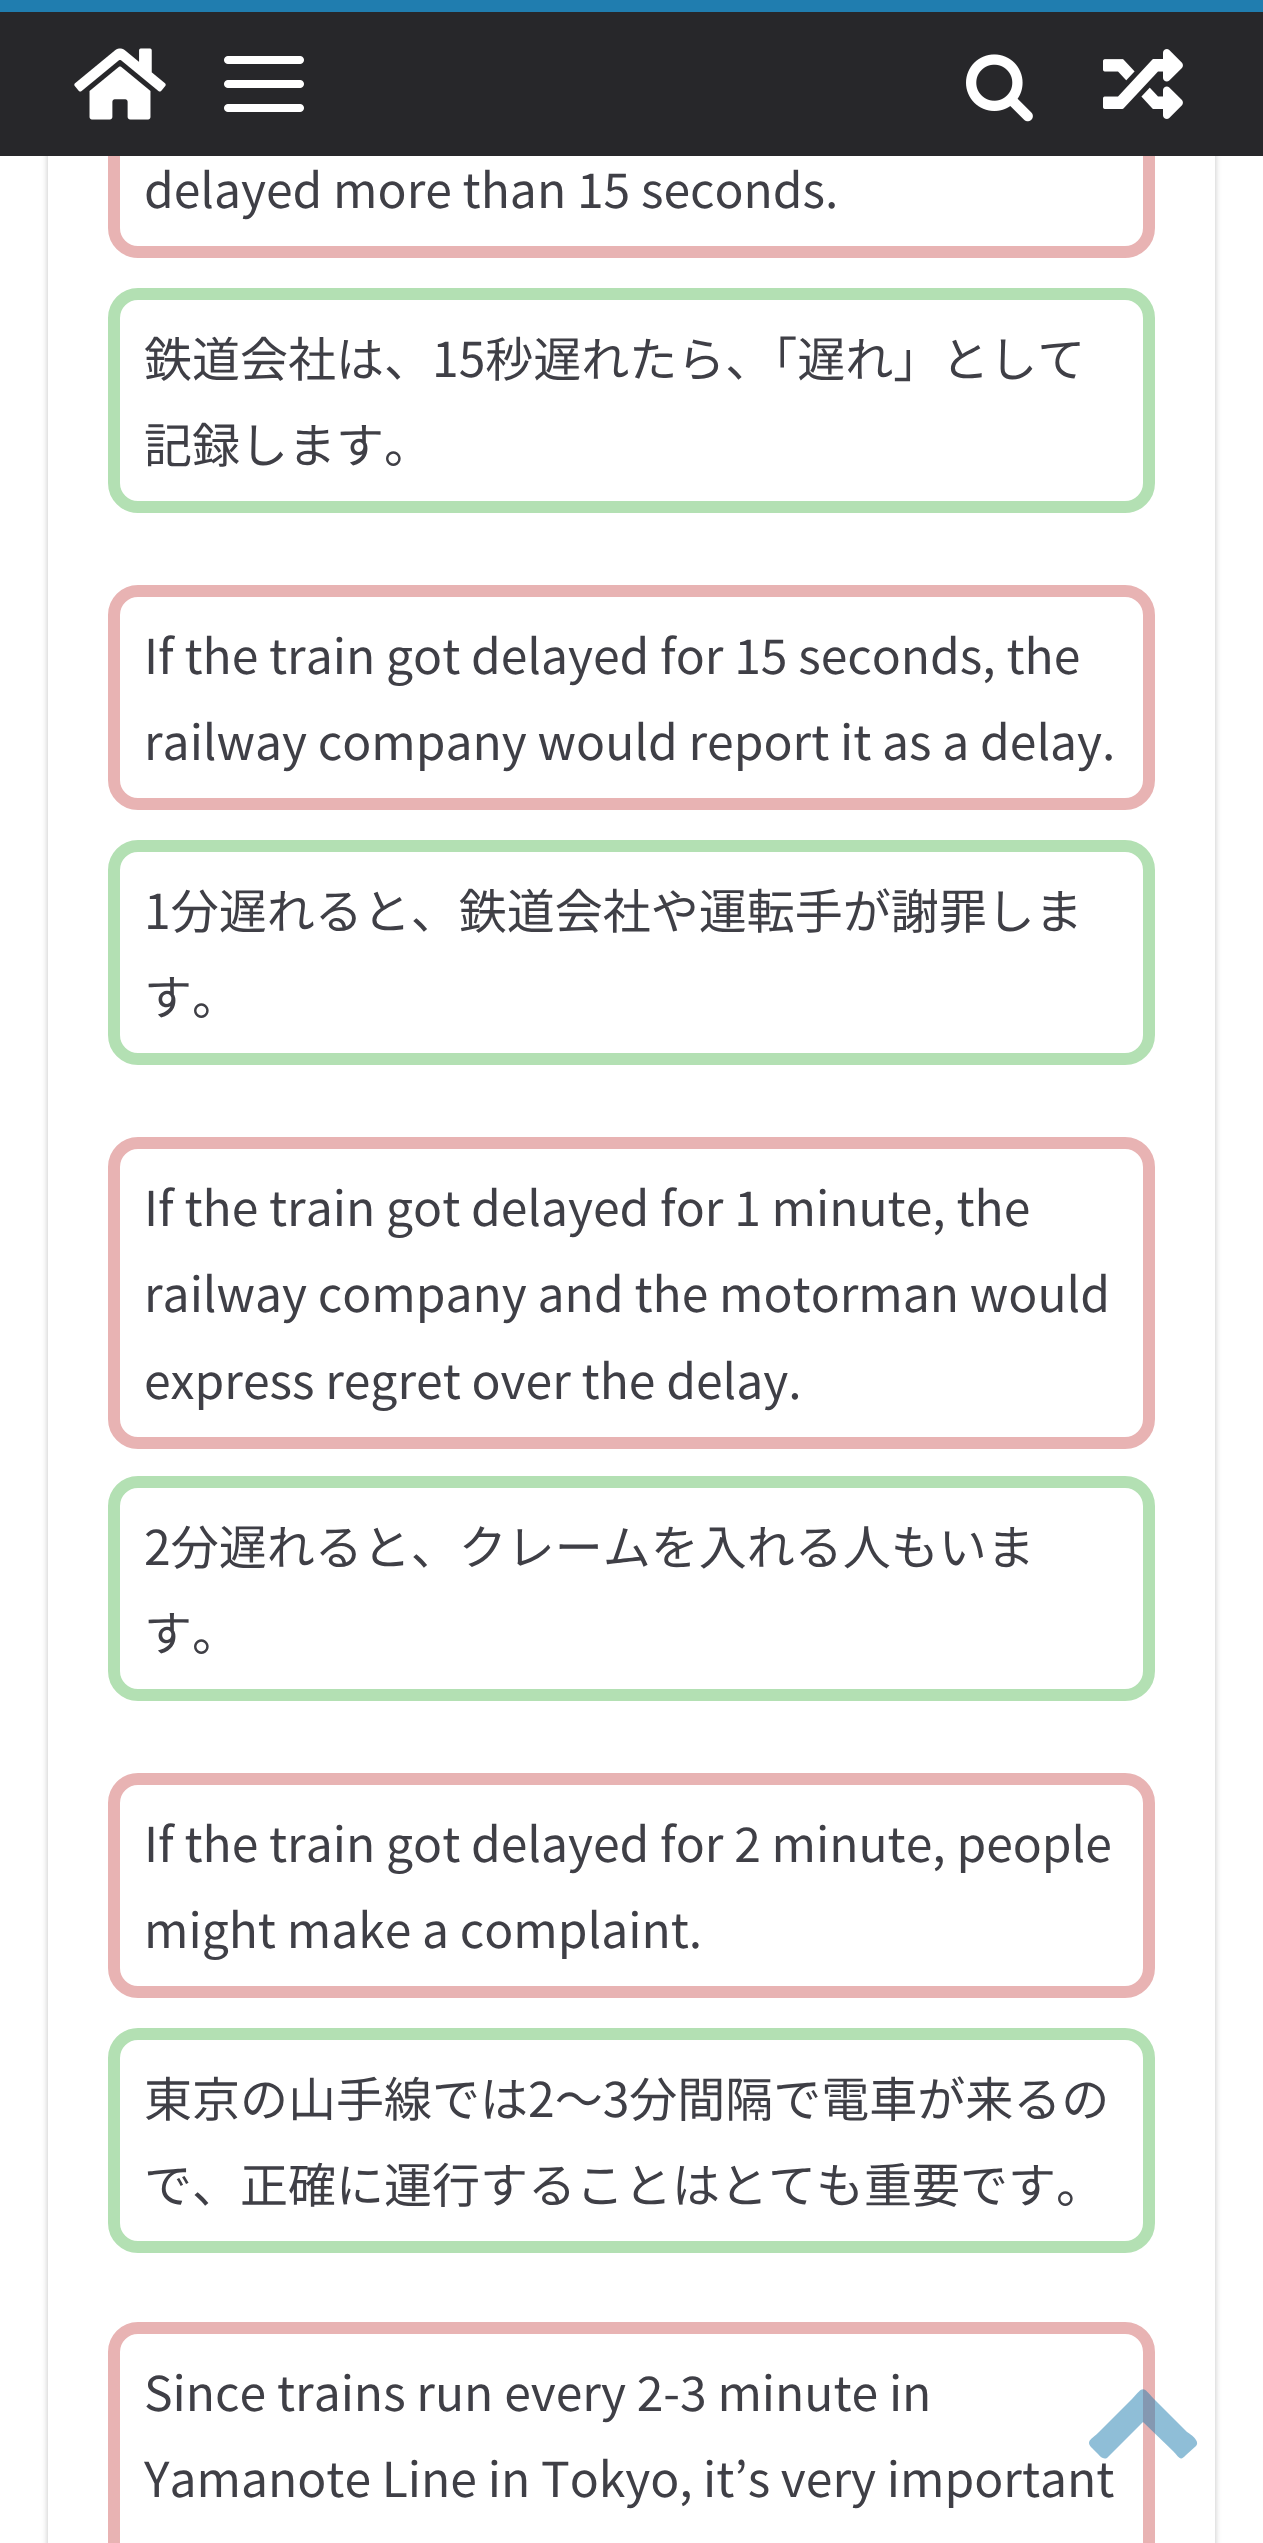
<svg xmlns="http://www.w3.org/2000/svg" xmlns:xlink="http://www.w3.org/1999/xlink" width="1263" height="2543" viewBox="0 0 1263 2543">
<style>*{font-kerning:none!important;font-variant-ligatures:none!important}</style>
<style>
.cls-1{font:100 48px Noto Sans JP;fill:#3f3f46}
</style>
<defs>
<clipPath id="clip1"><path d="M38 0H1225V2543H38ZM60-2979H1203C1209.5-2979 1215-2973.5 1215-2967V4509C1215 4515.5 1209.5 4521 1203 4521H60C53.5 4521 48 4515.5 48 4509V-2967C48-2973.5 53.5-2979 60-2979Z" clip-rule="evenodd"/></clipPath>
</defs>
<rect width="100%" height="100%" fill="#ffffff"/>
<g clip-path="url(#clip1)">
<rect fill="#000000" fill-opacity="0.24" filter="blur(3px)" x="48" y="-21" width="1167" height="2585" rx="12"/>
</g>
<rect fill="none" stroke="#e8b3b3" stroke-width="12" x="114" y="39" width="1035" height="213" rx="24"/>
<rect fill="#27272a" x="0" y="12" width="1263" height="144"/>
<rect fill="#207daf" x="0" y="0" width="1263" height="12"/>
<image xlink:href="image0.png" x="74" y="48" width="92" height="72"/>
<image xlink:href="image1.png" x="224" y="56" width="80" height="56"/>
<image xlink:href="image2.png" x="966" y="54" width="67" height="68"/>
<image xlink:href="image3.png" x="1103" y="49" width="80" height="70"/>
<rect fill="none" stroke="#b3e0b3" stroke-width="12" x="114" y="294" width="1035" height="213" rx="24"/>
<rect fill="none" stroke="#e8b3b3" stroke-width="12" x="114" y="591" width="1035" height="213" rx="24"/>
<rect fill="none" stroke="#b3e0b3" stroke-width="12" x="114" y="846" width="1035" height="213" rx="24"/>
<rect fill="none" stroke="#e8b3b3" stroke-width="12" x="114" y="1143" width="1035" height="300" rx="24"/>
<rect fill="none" stroke="#b3e0b3" stroke-width="12" x="114" y="1482" width="1035" height="213" rx="24"/>
<rect fill="none" stroke="#e8b3b3" stroke-width="12" x="114" y="1779" width="1035" height="213" rx="24"/>
<rect fill="none" stroke="#b3e0b3" stroke-width="12" x="114" y="2034" width="1035" height="213" rx="24"/>
<rect fill="none" stroke="#e8b3b3" stroke-width="12" x="114" y="2328" width="1035" height="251" rx="24"/>
<text class="cls-1" x="144" y="208">delayed more than 15 seconds.</text>
<text class="cls-1"><tspan x="144" y="377">鉄道会社は、15秒遅れたら、「遅れ」として</tspan><tspan x="144" y="463">記録します。</tspan></text>
<text class="cls-1"><tspan x="144" y="674">If the train got delayed for 15 seconds, the</tspan><tspan x="144" y="760">railway company would report it as a delay.</tspan></text>
<text class="cls-1"><tspan x="144" y="929">1分遅れると、鉄道会社や運転手が謝罪しま</tspan><tspan x="144" y="1015">す。</tspan></text>
<text class="cls-1"><tspan x="144" y="1226">If the train got delayed for 1 minute, the</tspan><tspan x="144" y="1312">railway company and the motorman would</tspan><tspan x="144" y="1399">express regret over the delay.</tspan></text>
<text class="cls-1"><tspan x="144" y="1565">2分遅れると、クレームを入れる人もいま</tspan><tspan x="144" y="1651">す。</tspan></text>
<text class="cls-1"><tspan x="144" y="1862">If the train got delayed for 2 minute, people</tspan><tspan x="144" y="1948">might make a complaint.</tspan></text>
<text class="cls-1"><tspan x="144" y="2117">東京の山手線では2～3分間隔で電車が来るの</tspan><tspan x="144" y="2203">で、正確に運行することはとても重要です</tspan></text>
<text class="cls-1" x="1056" y="2203">。</text>
<text class="cls-1"><tspan x="144" y="2411">Since trains run every 2-3 minute in</tspan><tspan x="144" y="2497">Yamanote Line in Tokyo,</tspan></text>
<text class="cls-1" x="703" y="2497">it’s very important</text>
<path fill="#207daf" fill-opacity="0.5" d="M1196 2446L1186 2455C1180 2462 1179 2457 1173 2451L1143 2422L1107 2458C1103 2460 1100 2456 1098 2454L1092 2448C1085 2441 1092 2439 1099 2432L1132 2399C1144 2386 1142 2386 1154 2399L1187 2432C1189 2433 1201 2441 1196 2446Z"/>
</svg>
